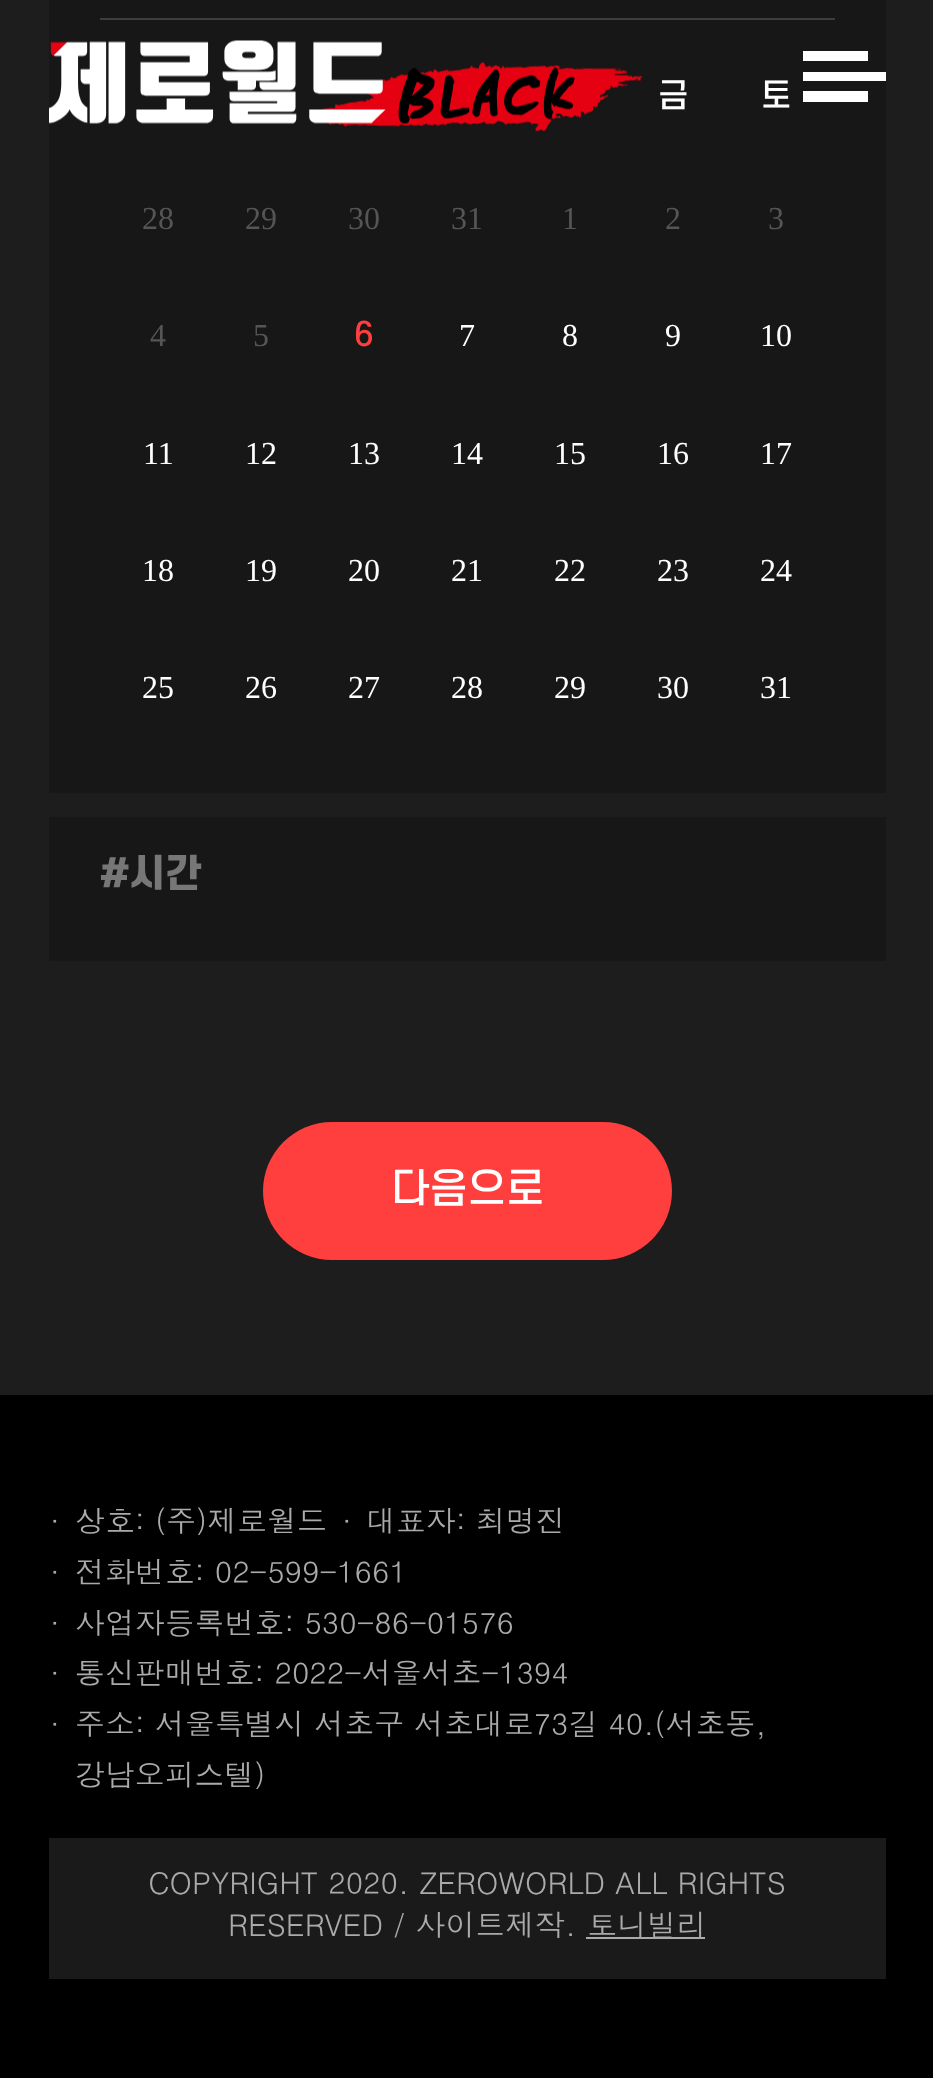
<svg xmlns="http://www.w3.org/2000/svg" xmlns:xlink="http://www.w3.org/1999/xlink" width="933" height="2078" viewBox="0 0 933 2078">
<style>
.cls-1{font:500 32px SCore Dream;fill:#ffffff}
.cls-2{font:32px Liberation Serif;fill:#555555}
.cls-3{font:500 32px SCore Dream;fill:#ff3f3e}
.cls-4{font:32px Liberation Serif;fill:#ffffff}
.cls-5{font:900 37.5px SCore Dream;fill:#777777}
.cls-6{font:500 40px SCore Dream;fill:#ffffff}
.cls-7{font:29.9px Dotum;fill:#aaaaaa}
</style>
<rect width="100%" height="100%" fill="#1d1d1d"/>
<rect fill="#171717" x="49" y="0" width="837" height="793"/>
<image xlink:href="image0.png" x="49" y="40" width="593" height="92"/>
<rect fill="#ffffff" x="803" y="72" width="83" height="9"/>
<rect fill="#ffffff" x="803" y="51" width="65" height="10"/>
<rect fill="#ffffff" x="803" y="91" width="65" height="11"/>
<rect fill="#3d3d3d" x="100" y="18" width="735" height="2"/>
<rect fill="#171717" x="49" y="817" width="837" height="144"/>
<rect fill="#ff3f3e" x="263" y="1122" width="409" height="138" rx="69"/>
<rect fill="#000000" x="0" y="1395" width="933" height="683"/>
<rect fill="#1a1a1a" x="49" y="1838" width="837" height="141"/>
<rect fill="#aaaaaa" x="586" y="1937" width="119" height="2"/>
<text class="cls-1" x="658" y="107">금</text>
<text class="cls-1" x="761" y="107">토</text>
<text class="cls-2" x="142" y="229">28</text>
<text class="cls-2" x="245" y="229">29</text>
<text class="cls-2" x="348" y="229">30</text>
<text class="cls-2" x="451" y="229">31</text>
<text class="cls-2" x="562" y="229">1</text>
<text class="cls-2" x="665" y="229">2</text>
<text class="cls-2" x="768" y="229">3</text>
<text class="cls-2" x="150" y="346">4</text>
<text class="cls-2" x="253" y="346">5</text>
<text class="cls-3" x="354" y="346">6</text>
<text class="cls-4" x="459" y="346">7</text>
<text class="cls-4" x="562" y="346">8</text>
<text class="cls-4" x="665" y="346">9</text>
<text class="cls-4" x="760" y="346">10</text>
<text class="cls-4" x="143" y="464">11</text>
<text class="cls-4" x="245" y="464">12</text>
<text class="cls-4" x="348" y="464">13</text>
<text class="cls-4" x="451" y="464">14</text>
<text class="cls-4" x="554" y="464">15</text>
<text class="cls-4" x="657" y="464">16</text>
<text class="cls-4" x="760" y="464">17</text>
<text class="cls-4" x="142" y="581">18</text>
<text class="cls-4" x="245" y="581">19</text>
<text class="cls-4" x="348" y="581">20</text>
<text class="cls-4" x="451" y="581">21</text>
<text class="cls-4" x="554" y="581">22</text>
<text class="cls-4" x="657" y="581">23</text>
<text class="cls-4" x="760" y="581">24</text>
<text class="cls-4" x="142" y="698">25</text>
<text class="cls-4" x="245" y="698">26</text>
<text class="cls-4" x="348" y="698">27</text>
<text class="cls-4" x="451" y="698">28</text>
<text class="cls-4" x="554" y="698">29</text>
<text class="cls-4" x="657" y="698">30</text>
<text class="cls-4" x="760" y="698">31</text>
<text class="cls-5" x="100" y="887">#시간</text>
<text class="cls-6" x="391" y="1203">다음으로</text>
<text class="cls-7" x="50" y="1532">·</text>
<text class="cls-7" x="75" y="1532">상호: (주)제로월드</text>
<text class="cls-7" x="342" y="1532">·</text>
<text class="cls-7" x="366" y="1532">대표자: 최명진</text>
<text class="cls-7" x="50" y="1583">·</text>
<text class="cls-7" x="75" y="1583">전화번호: 02-599-1661</text>
<text class="cls-7" x="50" y="1634">·</text>
<text class="cls-7" x="75" y="1634">사업자등록번호: 530-86-01576</text>
<text class="cls-7" x="50" y="1684">·</text>
<text class="cls-7" x="75" y="1684">통신판매번호: 2022-서울서초-1394</text>
<text class="cls-7" x="50" y="1735">·</text>
<text class="cls-7"><tspan x="75" y="1735">주소: 서울특별시 서초구 서초대로73길 40.(서초동,</tspan><tspan x="75" y="1786">강남오피스텔)</tspan></text>
<text class="cls-7" x="148" y="1894">COPYRIGHT 2020. ZEROWORLD ALL RIGHTS</text>
<text class="cls-7" x="228" y="1936">RESERVED / 사이트제작.</text>
<text class="cls-7" x="587" y="1936">토니빌리</text>
</svg>
